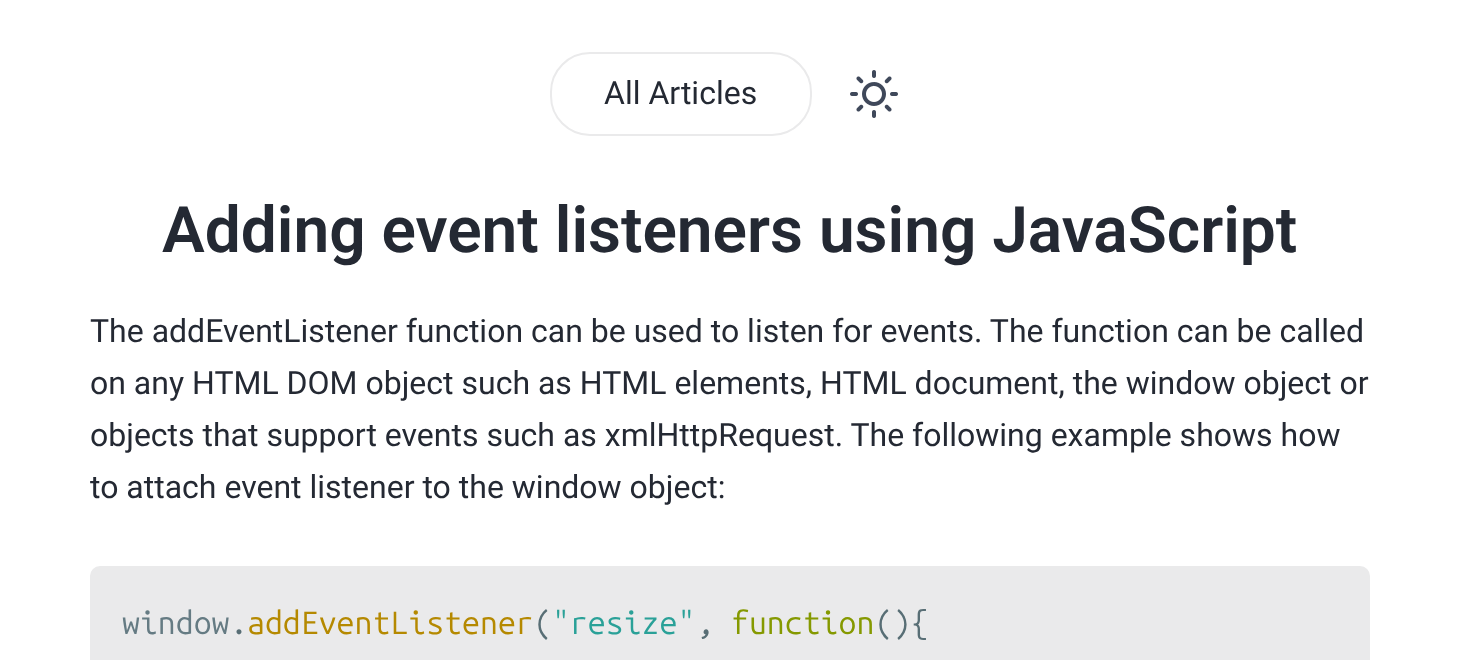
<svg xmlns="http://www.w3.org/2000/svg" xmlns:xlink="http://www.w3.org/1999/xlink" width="1459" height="660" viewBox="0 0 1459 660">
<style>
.cls-1{font:32px Roboto;fill:#242933}
.cls-2{font:600 64px Roboto;fill:#242933}
.cls-3{font:32px Ubuntu Mono;fill:#657b83}
.cls-4{font:32px Ubuntu Mono;fill:#586e75}
.cls-5{font:32px Ubuntu Mono;fill:#b58900}
.cls-6{font:32px Ubuntu Mono;fill:#2aa198}
.cls-7{font:32px Ubuntu Mono;fill:#859900}
</style>
<rect width="100%" height="100%" fill="#ffffff"/>
<rect fill="none" stroke="#eaeaeb" stroke-width="2" x="551" y="53" width="260" height="82" rx="39"/>
<image xlink:href="image0.png" x="850" y="70" width="48" height="48"/>
<rect fill="#eaeaeb" x="90" y="566" width="1280" height="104" rx="10"/>
<text class="cls-1" x="604" y="104">All Articles</text>
<text class="cls-2" x="162" y="252">Adding event listeners using JavaScript</text>
<text class="cls-1"><tspan x="90" y="342">The addEventListener function can be used to listen for events. The function can be called</tspan><tspan x="90" y="394">on any HTML DOM object such as HTML elements, HTML document, the window object or</tspan><tspan x="90" y="446">objects that support events such as xmlHttpRequest. The following example shows how</tspan><tspan x="90" y="498">to attach event listener to the window object:</tspan></text>
<text class="cls-3" x="122" y="634">window</text>
<text class="cls-4" x="230" y="634">.</text>
<text class="cls-5" x="247" y="634">addEventListener</text>
<text class="cls-4" x="534" y="634">(</text>
<text class="cls-6" x="552" y="634">"resize"</text>
<text class="cls-4" x="696" y="634">,</text>
<text class="cls-7" x="731" y="634">function</text>
<text class="cls-4" x="875" y="634">(){</text>
</svg>
